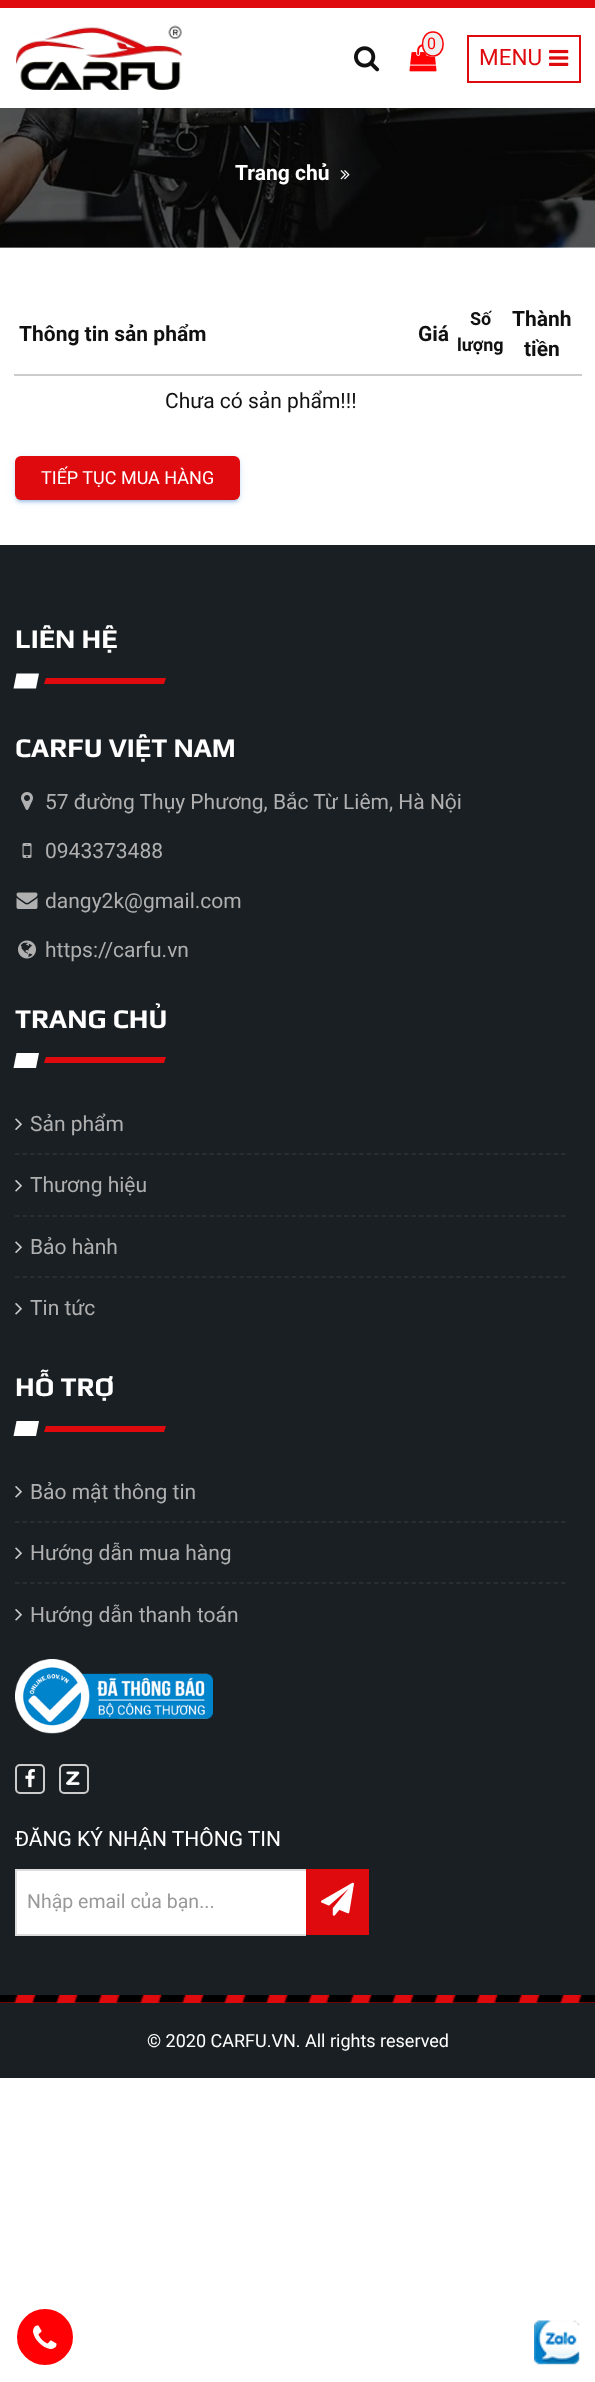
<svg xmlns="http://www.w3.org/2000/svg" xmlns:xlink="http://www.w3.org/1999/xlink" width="595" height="2382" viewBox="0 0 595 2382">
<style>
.cls-1{font:16px Roboto;fill:#ff0005}
.cls-2{font:22.5px Roboto;fill:#df0a0e}
.cls-3{font:bold 21px Roboto;fill:#ffffff}
.cls-4{font:bold 21px Roboto;fill:#111111}
.cls-5{font:bold 18px Roboto;fill:#111111}
.cls-6{font:21px Roboto;fill:#111111}
.cls-7{font:18px Roboto;fill:#ffffff}
.cls-8{font:bold 27px Play;fill:#ffffff}
.cls-9{font:21px Roboto;fill:#b0b0b0}
.cls-10{font:21px Roboto;fill:#ffffff}
.cls-11{font:19.5px Roboto;fill:#999999}
</style>
<rect width="100%" height="100%" fill="#ffffff"/>
<rect fill="#df0a0e" x="0" y="0" width="595" height="8"/>
<image xlink:href="image0.png" x="16" y="25" width="166" height="65"/>
<image xlink:href="image1.png" x="409" y="44" width="28" height="28"/>
<ellipse fill="#eeeeee" cx="433" cy="44" rx="11" ry="13"/>
<path fill="none" stroke="#ff0005" stroke-width="1.5" d="M433 32C446.5 32 446.5 56 433 56C419 56 419 32 433 32Z"/>
<image xlink:href="image2.png" x="354" y="46" width="26" height="26"/>
<rect fill="none" stroke="#df0a0e" stroke-width="2" x="468" y="36" width="112" height="46"/>
<image xlink:href="image3.png" x="549" y="49" width="20" height="17"/>
<image xlink:href="image4.png" x="0" y="108" width="595" height="140"/>
<image xlink:href="image5.png" x="340" y="170" width="10" height="10"/>
<rect fill="#cccccc" x="14" y="374" width="568" height="2"/>
<rect fill="#005abc" fill-opacity="0.12" filter="blur(4px)" x="15" y="458" width="225" height="43" rx="6"/>
<rect fill="#005abc" fill-opacity="0.2" filter="blur(1px)" x="18" y="464" width="219" height="37" rx="2"/>
<rect fill="#005abc" fill-opacity="0.14" filter="blur(1.5px)" x="15" y="459" width="225" height="44" rx="6"/>
<rect fill="#df0a0e" x="15" y="456" width="225" height="44" rx="6"/>
<rect fill="#191f23" x="0" y="545" width="595" height="1450"/>
<path fill="#ffffff" d="M16.5 673.5H39L36 688.5H13.5Z"/>
<path fill="#df0a0e" d="M46 678H166L164 684H44Z"/>
<image xlink:href="image6.png" x="21" y="792" width="12" height="18"/>
<image xlink:href="image7.png" x="22" y="843" width="10" height="15"/>
<image xlink:href="image8.png" x="16" y="892" width="22" height="17"/>
<image xlink:href="image9.png" x="18" y="940" width="18" height="19"/>
<path fill="#ffffff" d="M16.5 1053H39L36 1068H13.5Z"/>
<path fill="#df0a0e" d="M46 1057H166L164 1063H44Z"/>
<path fill="none" stroke="#303437" stroke-width="1.5" stroke-dasharray="4.5 2.98" d="M15 1154H565.5"/>
<image xlink:href="image10.png" x="15" y="1118" width="7" height="12"/>
<path fill="none" stroke="#303437" stroke-width="1.5" stroke-dasharray="4.5 2.98" d="M15 1216H565.5"/>
<image xlink:href="image11.png" x="15" y="1180" width="7" height="12"/>
<path fill="none" stroke="#303437" stroke-width="1.5" stroke-dasharray="4.5 2.98" d="M15 1277H565.5"/>
<image xlink:href="image10.png" x="15" y="1241" width="7" height="12"/>
<image xlink:href="image11.png" x="15" y="1303" width="7" height="12"/>
<path fill="#ffffff" d="M16.5 1421H39L36 1436H13.5Z"/>
<path fill="#df0a0e" d="M46 1426H166L164 1432H44Z"/>
<path fill="none" stroke="#303437" stroke-width="1.5" stroke-dasharray="4.5 2.98" d="M15 1522H565.5"/>
<image xlink:href="image11.png" x="15" y="1486" width="7" height="12"/>
<path fill="none" stroke="#303437" stroke-width="1.5" stroke-dasharray="4.5 2.98" d="M15 1583H565.5"/>
<image xlink:href="image10.png" x="15" y="1547" width="7" height="12"/>
<image xlink:href="image11.png" x="15" y="1609" width="7" height="12"/>
<image xlink:href="image12.png" x="15" y="1659" width="198" height="75"/>
<rect fill="none" stroke="#cccccc" stroke-width="2" x="16" y="1765" width="28" height="28" rx="4"/>
<image xlink:href="image13.png" x="25" y="1769" width="10" height="19"/>
<image xlink:href="image14.png" x="66" y="1771" width="14" height="14"/>
<rect fill="none" stroke="#cccccc" stroke-width="2" x="60" y="1765" width="28" height="28" rx="4"/>
<rect fill="#ffffff" x="17" y="1871" width="289" height="63"/>
<rect fill="#dddddd" x="15" y="1869" width="291" height="2"/>
<rect fill="#dddddd" x="15" y="1934" width="291" height="2"/>
<rect fill="#dddddd" x="15" y="1869" width="2" height="66"/>
<rect fill="#df0a0e" x="306" y="1869" width="63" height="66"/>
<image xlink:href="image15.png" x="321" y="1882" width="33" height="34"/>
<rect fill="#191f23" x="0" y="2003" width="595" height="75"/>
<rect fill="#df0a0e" x="0" y="1995" width="595" height="8"/>
<image xlink:href="image16.png" x="0" y="1995" width="595" height="8"/>
<circle fill="#ff0005" stroke="#ffffff" stroke-width="2" cx="45" cy="2337" r="29"/>
<image xlink:href="image17.png" x="33" y="2325" width="24" height="24"/>
<image xlink:href="image18.png" x="534" y="2320" width="46" height="45"/>
<text class="cls-1" x="427" y="49">0</text>
<text class="cls-2" x="479" y="65">MENU</text>
<text class="cls-3" x="235" y="180">Trang chủ</text>
<text class="cls-4" x="19" y="341">Thông tin sản phẩm</text>
<text class="cls-4" x="418" y="341">Giá</text>
<text class="cls-5" x="470" y="325">Số</text>
<text class="cls-5" x="457" y="351">lượng</text>
<text class="cls-4" x="512" y="326">Thành</text>
<text class="cls-4" x="524" y="356">tiền</text>
<text class="cls-6" x="165" y="408">Chưa có sản phẩm!!!</text>
<text class="cls-7" x="41" y="484">TIẾP TỤC MUA HÀNG</text>
<text class="cls-8" x="15" y="648">LIÊN HỆ</text>
<text class="cls-8" x="15" y="757">CARFU VIỆT NAM</text>
<text class="cls-9" x="45" y="809">57 đường Thụy Phương, Bắc Từ Liêm, Hà Nội</text>
<text class="cls-9" x="45" y="858">0943373488</text>
<text class="cls-9" x="45" y="908">dangy2k@gmail.com</text>
<text class="cls-9" x="45" y="957">https://carfu.vn</text>
<text class="cls-8" x="15" y="1028">TRANG CHỦ</text>
<text class="cls-9" x="30" y="1131">Sản phẩm</text>
<text class="cls-9" x="30" y="1192">Thương hiệu</text>
<text class="cls-9" x="30" y="1254">Bảo hành</text>
<text class="cls-9" x="30" y="1315">Tin tức</text>
<text class="cls-8" x="15" y="1396">HỖ TRỢ</text>
<text class="cls-9" x="30" y="1499">Bảo mật thông tin</text>
<text class="cls-9" x="30" y="1560">Hướng dẫn mua hàng</text>
<text class="cls-9" x="30" y="1622">Hướng dẫn thanh toán</text>
<text class="cls-10" x="15" y="1846">ĐĂNG KÝ NHẬN THÔNG TIN</text>
<text class="cls-11" x="27" y="1908">Nhập email của bạn...</text>
<text class="cls-7" x="147" y="2047">© 2020 CARFU.VN. All rights reserved</text>
</svg>
